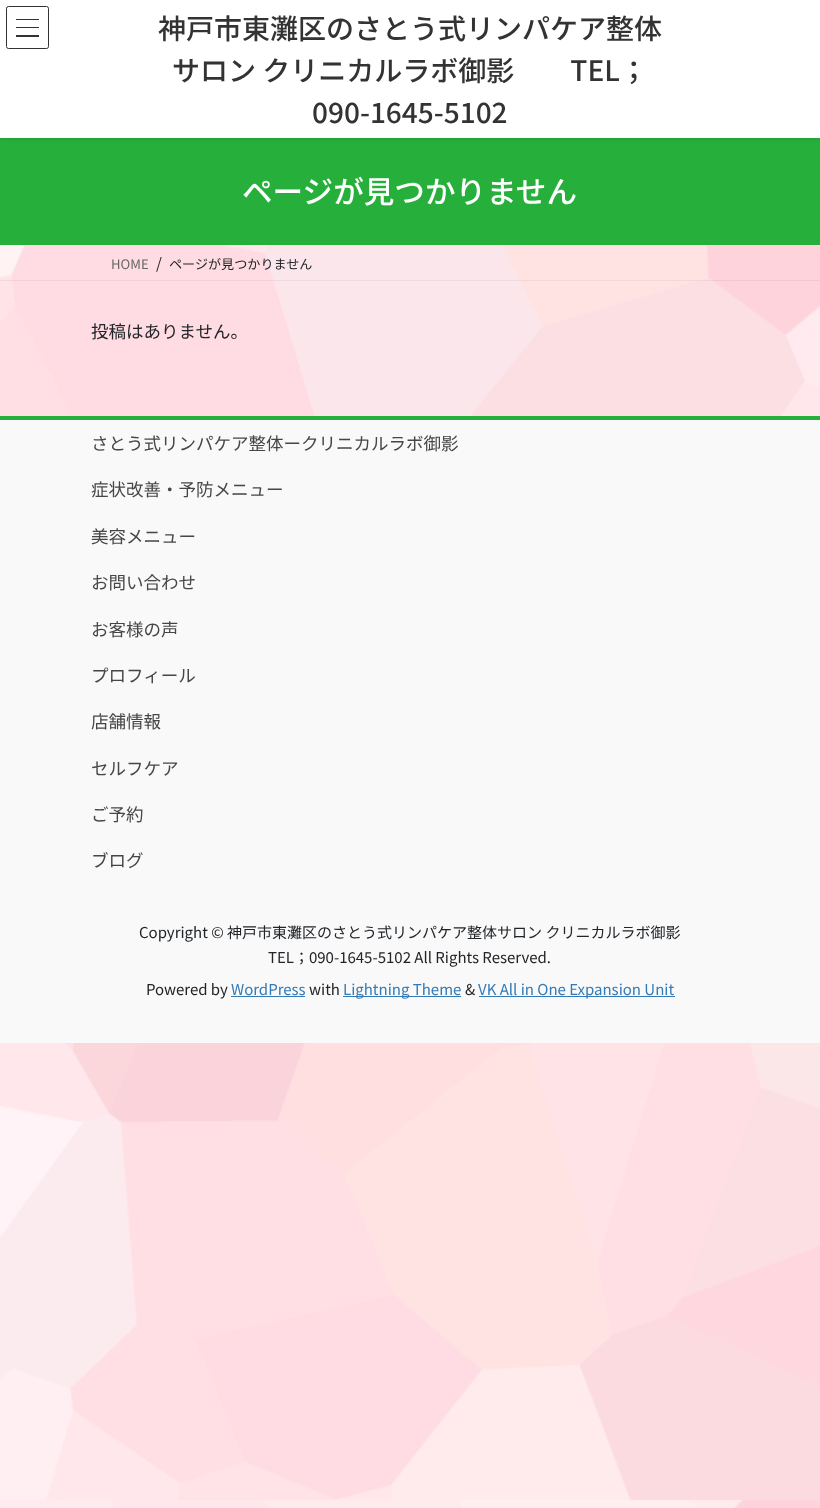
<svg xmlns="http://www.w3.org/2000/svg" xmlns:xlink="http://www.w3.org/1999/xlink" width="820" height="1508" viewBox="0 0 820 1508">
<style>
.cls-1{font:500 28px Noto Sans JP;fill:#333333}
.cls-2{font:500 30.6px Noto Sans JP;fill:#ffffff}
.cls-3{font:13.1px Noto Sans JP;fill:#666666}
.cls-4{font:15px Noto Sans JP;fill:#212529}
.cls-5{font:13.1px Noto Sans JP;fill:#212529}
.cls-6{font:17.5px Noto Sans JP;fill:#212529}
.cls-7{font:17.5px Noto Sans JP;fill:#464646}
.cls-8{font:15px Noto Sans JP;fill:#337ab7}
</style>
<rect width="100%" height="100%" fill="#ffffff"/>
<image xlink:href="image0.png" x="0" y="245" width="820" height="1263"/>
<rect fill="#26af3b" x="0" y="138" width="820" height="107"/>
<rect fill="#000000" fill-opacity="0.1" filter="blur(2px)" x="0" y="1" width="820" height="138"/>
<rect fill="#ffffff" x="0" y="0" width="820" height="138"/>
<rect fill="#333333" x="16" y="19" width="23" height="1"/>
<rect fill="#333333" x="16" y="27" width="23" height="1"/>
<rect fill="#333333" x="16" y="35" width="23" height="2"/>
<rect fill="none" stroke="#333333" x="6.5" y="6.5" width="42" height="42" rx="2"/>
<rect fill="#000000" fill-opacity="0.05" x="0" y="280" width="820" height="1"/>
<rect fill="#f9f9f9" x="0" y="420" width="820" height="623"/>
<rect fill="#26af3b" x="0" y="416" width="820" height="4"/>
<rect fill="#337ab7" x="231" y="996" width="74" height="1"/>
<rect fill="#337ab7" x="343" y="996" width="118" height="1"/>
<rect fill="#337ab7" x="479" y="996" width="196" height="1"/>
<text class="cls-1" x="158" y="39">神戸市東灘区のさとう式リンパケア整体</text>
<text class="cls-1" x="172" y="81">サロン クリニカルラボ御影　　TEL；</text>
<text class="cls-1" x="312" y="123">090-1645-5102</text>
<text class="cls-2" x="242" y="203">ページが見つかりません</text>
<text class="cls-3" x="111" y="269">HOME</text>
<text class="cls-4" x="156" y="269">/</text>
<text class="cls-5" x="169" y="269">ページが見つかりません</text>
<text class="cls-6" x="91" y="338">投稿はありません。</text>
<text class="cls-7" x="91" y="450">さとう式リンパケア整体ークリニカルラボ御影</text>
<text class="cls-7" x="91" y="496">症状改善・予防メニュー</text>
<text class="cls-7" x="91" y="543">美容メニュー</text>
<text class="cls-7" x="91" y="589">お問い合わせ</text>
<text class="cls-7" x="91" y="636">お客様の声</text>
<text class="cls-7" x="91" y="682">プロフィール</text>
<text class="cls-7" x="91" y="728">店舗情報</text>
<text class="cls-7" x="91" y="775">セルフケア</text>
<text class="cls-7" x="91" y="821">ご予約</text>
<text class="cls-7" x="91" y="867">ブログ</text>
<text class="cls-4" x="139" y="938">Copyright © 神戸市東灘区のさとう式リンパケア整体サロン クリニカルラボ御影</text>
<text class="cls-4" x="268" y="963">TEL；090-1645-5102 All Rights Reserved.</text>
<text class="cls-4" x="146" y="995">Powered by</text>
<text class="cls-8" x="231" y="995">WordPress</text>
<text class="cls-4" x="309" y="995">with</text>
<text class="cls-8" x="343" y="995">Lightning Theme</text>
<text class="cls-4" x="465" y="995">&amp;</text>
<text class="cls-8" x="478" y="995">VK All in One Expansion Unit</text>
</svg>
